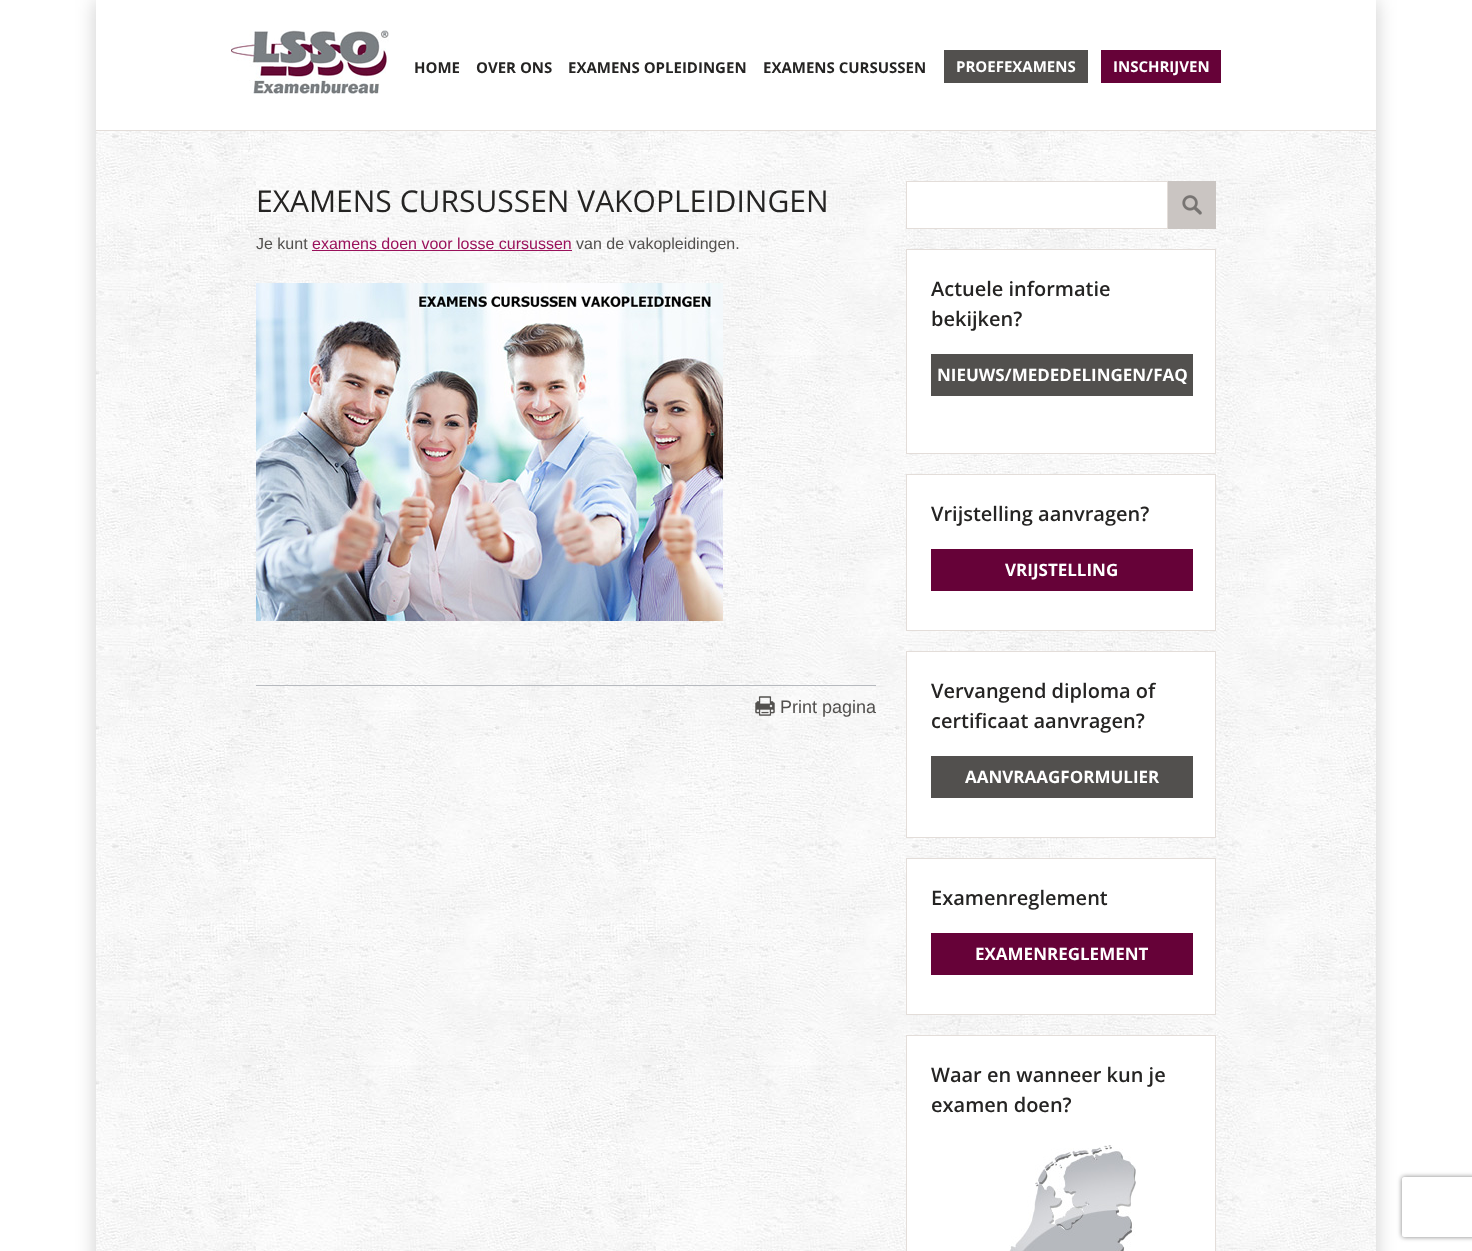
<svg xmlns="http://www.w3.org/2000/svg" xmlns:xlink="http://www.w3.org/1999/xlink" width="1472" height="1251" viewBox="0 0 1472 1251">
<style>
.cls-1{font:bold 15px Open Sans;fill:#252423}
.cls-2{font:bold 15px Open Sans;fill:#ffffff}
.cls-3{font:30px Open Sans;fill:#252423}
.cls-4{font:16px Liberation Sans;fill:#52504e}
.cls-5{font:16px Liberation Sans;fill:#9a115b}
.cls-6{font:18px Liberation Sans;fill:#52504e}
.cls-7{font:600 20px Open Sans;fill:#252423}
.cls-8{font:bold 17px Open Sans;fill:#ffffff}
</style>
<defs>
<clipPath id="clip1"><path d="M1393 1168H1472V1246H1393ZM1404 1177H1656C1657 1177 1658 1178 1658 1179V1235C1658 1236 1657 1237 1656 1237H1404C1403 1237 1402 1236 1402 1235V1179C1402 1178 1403 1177 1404 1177Z" clip-rule="evenodd"/></clipPath>
</defs>
<rect width="100%" height="100%" fill="#ffffff"/>
<rect fill="#000000" fill-opacity="0.2" filter="blur(10px)" x="96" y="0" width="1280" height="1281"/>
<image xlink:href="image0.png" x="96" y="131" width="1280" height="1120"/>
<rect fill="#ffffff" x="96" y="0" width="1280" height="130"/>
<rect fill="#e3ddd9" x="96" y="130" width="1280" height="1"/>
<image xlink:href="image1.png" x="231" y="30" width="158" height="64"/>
<rect fill="#52504e" x="944" y="50" width="144" height="33"/>
<rect fill="#660238" x="1101" y="50" width="120" height="33"/>
<rect fill="#b6b9be" x="256" y="685" width="620" height="1"/>
<rect fill="#9a115b" x="312" y="250" width="260" height="1"/>
<image xlink:href="image2.png" x="256" y="283" width="467" height="338"/>
<image xlink:href="image3.png" x="755" y="696" width="20" height="20"/>
<rect fill="#ffffff" stroke="#e3ddd9" x="906.5" y="181.5" width="261" height="47"/>
<image xlink:href="image4.png" x="1168" y="181" width="48" height="48"/>
<rect fill="#ffffff" stroke="#e3ddd9" x="906.5" y="249.5" width="309" height="204"/>
<rect fill="#52504e" x="931" y="354" width="262" height="42"/>
<rect fill="#ffffff" stroke="#e3ddd9" x="906.5" y="474.5" width="309" height="156"/>
<rect fill="#660238" x="931" y="549" width="262" height="42"/>
<rect fill="#ffffff" stroke="#e3ddd9" x="906.5" y="651.5" width="309" height="186"/>
<rect fill="#52504e" x="931" y="756" width="262" height="42"/>
<rect fill="#ffffff" stroke="#e3ddd9" x="906.5" y="858.5" width="309" height="156"/>
<rect fill="#660238" x="931" y="933" width="262" height="42"/>
<rect fill="#ffffff" stroke="#e3ddd9" x="906.5" y="1035.5" width="309" height="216"/>
<image xlink:href="image5.png" x="1009" y="1145" width="127" height="106"/>
<g clip-path="url(#clip1)">
<rect fill="#808080" filter="blur(2.5px)" x="1402" y="1177" width="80" height="60" rx="2"/>
</g>
<text class="cls-1" x="414" y="73">HOME</text>
<text class="cls-1" x="476" y="73">OVER ONS</text>
<text class="cls-1" x="568" y="73">EXAMENS OPLEIDINGEN</text>
<text class="cls-1" x="763" y="73">EXAMENS CURSUSSEN</text>
<text class="cls-2" x="956" y="72">PROEFEXAMENS</text>
<text class="cls-2" x="1113" y="72">INSCHRIJVEN</text>
<text class="cls-3" x="256" y="212">EXAMENS CURSUSSEN VAKOPLEIDINGEN</text>
<text class="cls-4" x="256" y="249">Je kunt</text>
<text class="cls-5" x="312" y="249">examens doen voor losse cursussen</text>
<text class="cls-4" x="576" y="249">van de vakopleidingen.</text>
<text class="cls-6" x="780" y="713">Print pagina</text>
<text class="cls-7"><tspan x="931" y="296">Actuele informatie</tspan><tspan x="931" y="326">bekijken?</tspan></text>
<text class="cls-8" x="937" y="381">NIEUWS/MEDEDELINGEN/FAQ</text>
<text class="cls-7" x="931" y="521">Vrijstelling aanvragen?</text>
<text class="cls-8" x="1005" y="576">VRIJSTELLING</text>
<text class="cls-7"><tspan x="931" y="698">Vervangend diploma of</tspan><tspan x="931" y="728">certificaat aanvragen?</tspan></text>
<text class="cls-8" x="965" y="783">AANVRAAGFORMULIER</text>
<text class="cls-7" x="931" y="905">Examenreglement</text>
<text class="cls-8" x="975" y="960">EXAMENREGLEMENT</text>
<text class="cls-7"><tspan x="931" y="1082">Waar en wanneer kun je</tspan><tspan x="931" y="1112">examen doen?</tspan></text>
</svg>
